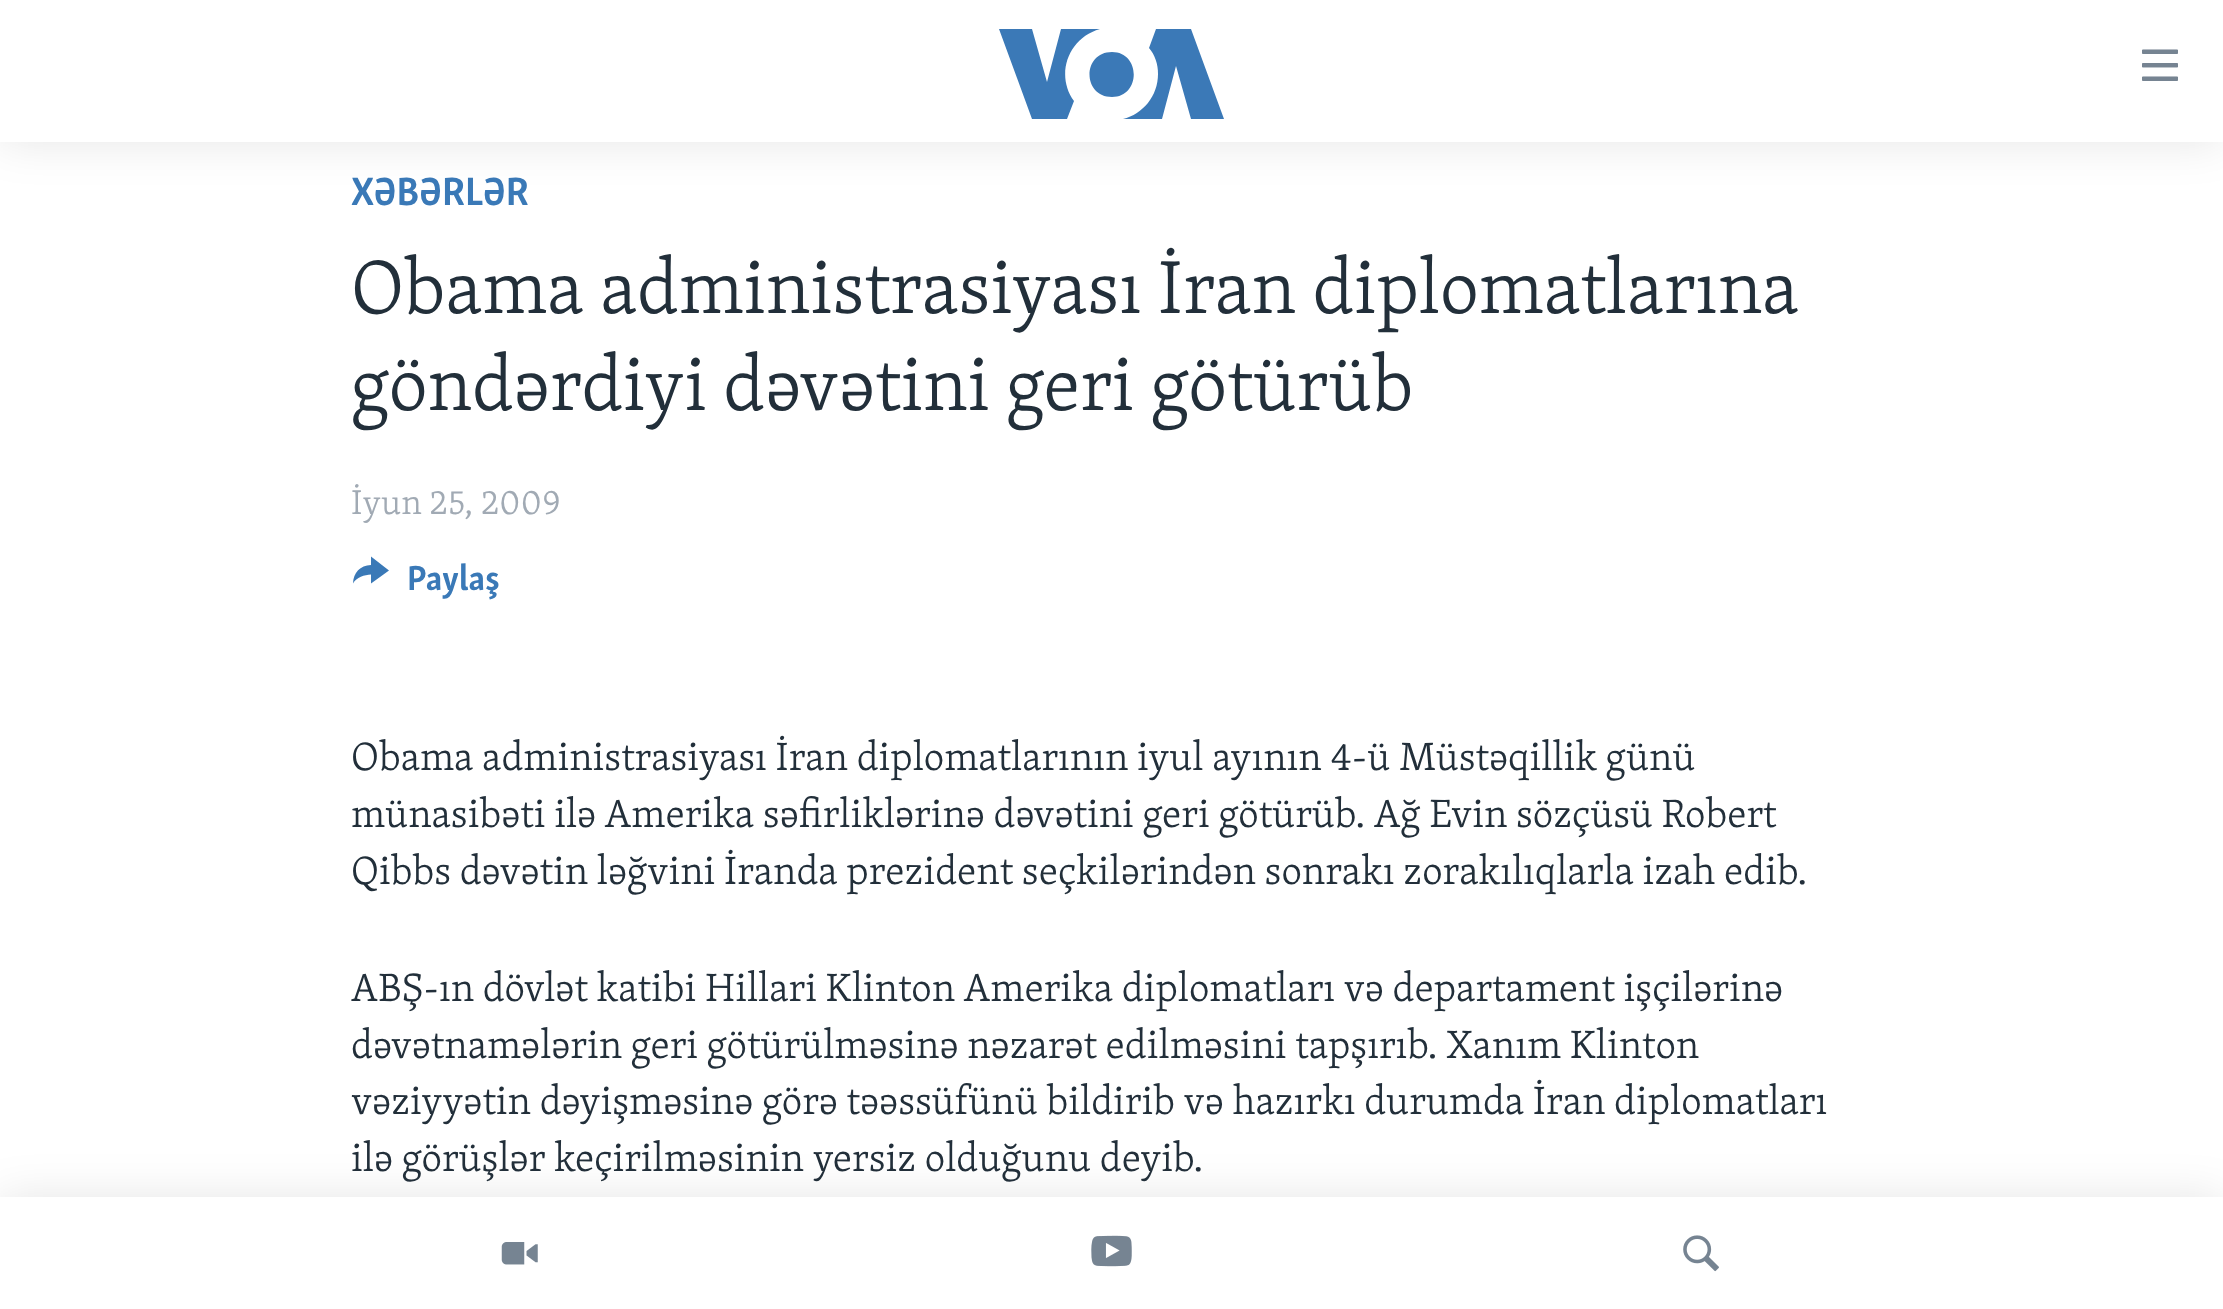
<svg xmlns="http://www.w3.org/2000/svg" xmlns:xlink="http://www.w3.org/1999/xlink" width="2223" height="1309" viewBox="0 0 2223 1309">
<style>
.cls-1{font:bold 40.5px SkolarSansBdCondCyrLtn;fill:#3a79b7}
.cls-2{font:300 77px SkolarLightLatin;fill:#222f3a}
.cls-3{font:300 35.5px SkolarLightLatin;fill:#a1aab4}
.cls-4{font:bold 35.5px SkolarSansBdCondCyrLtn;fill:#3a79b7}
.cls-5{font:300 40.5px SkolarLightLatin;fill:#222f3a}
</style>
<rect width="100%" height="100%" fill="#ffffff"/>
<rect fill="#000000" fill-opacity="0.1" filter="blur(22.5px)" x="0" y="0" width="2223" height="142"/>
<rect fill="#ffffff" x="0" y="0" width="2223" height="142"/>
<path fill="#3b79b7" d="M1074 101L1067 119H1032L999 29H1032L1047 82L1061 29H1100C1068 38 1055 75 1074 101ZM1112 52C1082 52 1082 97 1112 97C1141 97 1141 52 1112 52ZM1158 74C1158 96 1143 114 1123 119H1162L1176 66L1191 119H1224L1191 29H1156L1149 48C1155 55 1158 64 1158 74Z"/>
<image xlink:href="image0.png" x="2142" y="49" width="36" height="32"/>
<rect fill="#000000" fill-opacity="0.1" filter="blur(22.5px)" x="0" y="1197" width="2223" height="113"/>
<rect fill="#ffffff" x="0" y="1197" width="2223" height="112"/>
<image xlink:href="image1.png" x="501" y="1242" width="37" height="23"/>
<image xlink:href="image2.png" x="1091" y="1235" width="41" height="32"/>
<image xlink:href="image3.png" x="1683" y="1235" width="36" height="37"/>
<path fill="#3a79b7" d="M353 583.5C353.5 572.5 360 565.5 371 565V556.5L389 570.5L371 583.5V574.5C364.5 575 356.5 577 353 583.5Z"/>
<text class="cls-1" x="351" y="205">XƏBƏRLƏR</text>
<text class="cls-2"><tspan x="351" y="313">Obama administrasiyası İran diplomatlarına</tspan><tspan x="351" y="410">göndərdiyi dəvətini geri götürüb</tspan></text>
<text class="cls-3" x="351" y="514">İyun 25, 2009</text>
<text class="cls-4" x="407" y="590">Paylaş</text>
<text class="cls-5"><tspan x="351" y="770">Obama administrasiyası İran diplomatlarının iyul ayının 4-ü Müstəqillik günü</tspan><tspan x="351" y="827">münasibəti ilə Amerika səfirliklərinə dəvətini geri götürüb. Ağ Evin sözçüsü Robert</tspan><tspan x="351" y="884">Qibbs dəvətin ləğvini İranda prezident seçkilərindən sonrakı zorakılıqlarla izah edib.</tspan></text>
<text class="cls-5"><tspan x="351" y="1001">ABŞ-ın dövlət katibi Hillari Klinton Amerika diplomatları və departament işçilərinə</tspan><tspan x="351" y="1058">dəvətnamələrin geri götürülməsinə nəzarət edilməsini tapşırıb. Xanım Klinton</tspan><tspan x="351" y="1114">vəziyyətin dəyişməsinə görə təəssüfünü bildirib və hazırkı durumda İran diplomatları</tspan><tspan x="351" y="1171">ilə görüşlər keçirilməsinin yersiz olduğunu deyib.</tspan></text>
</svg>
